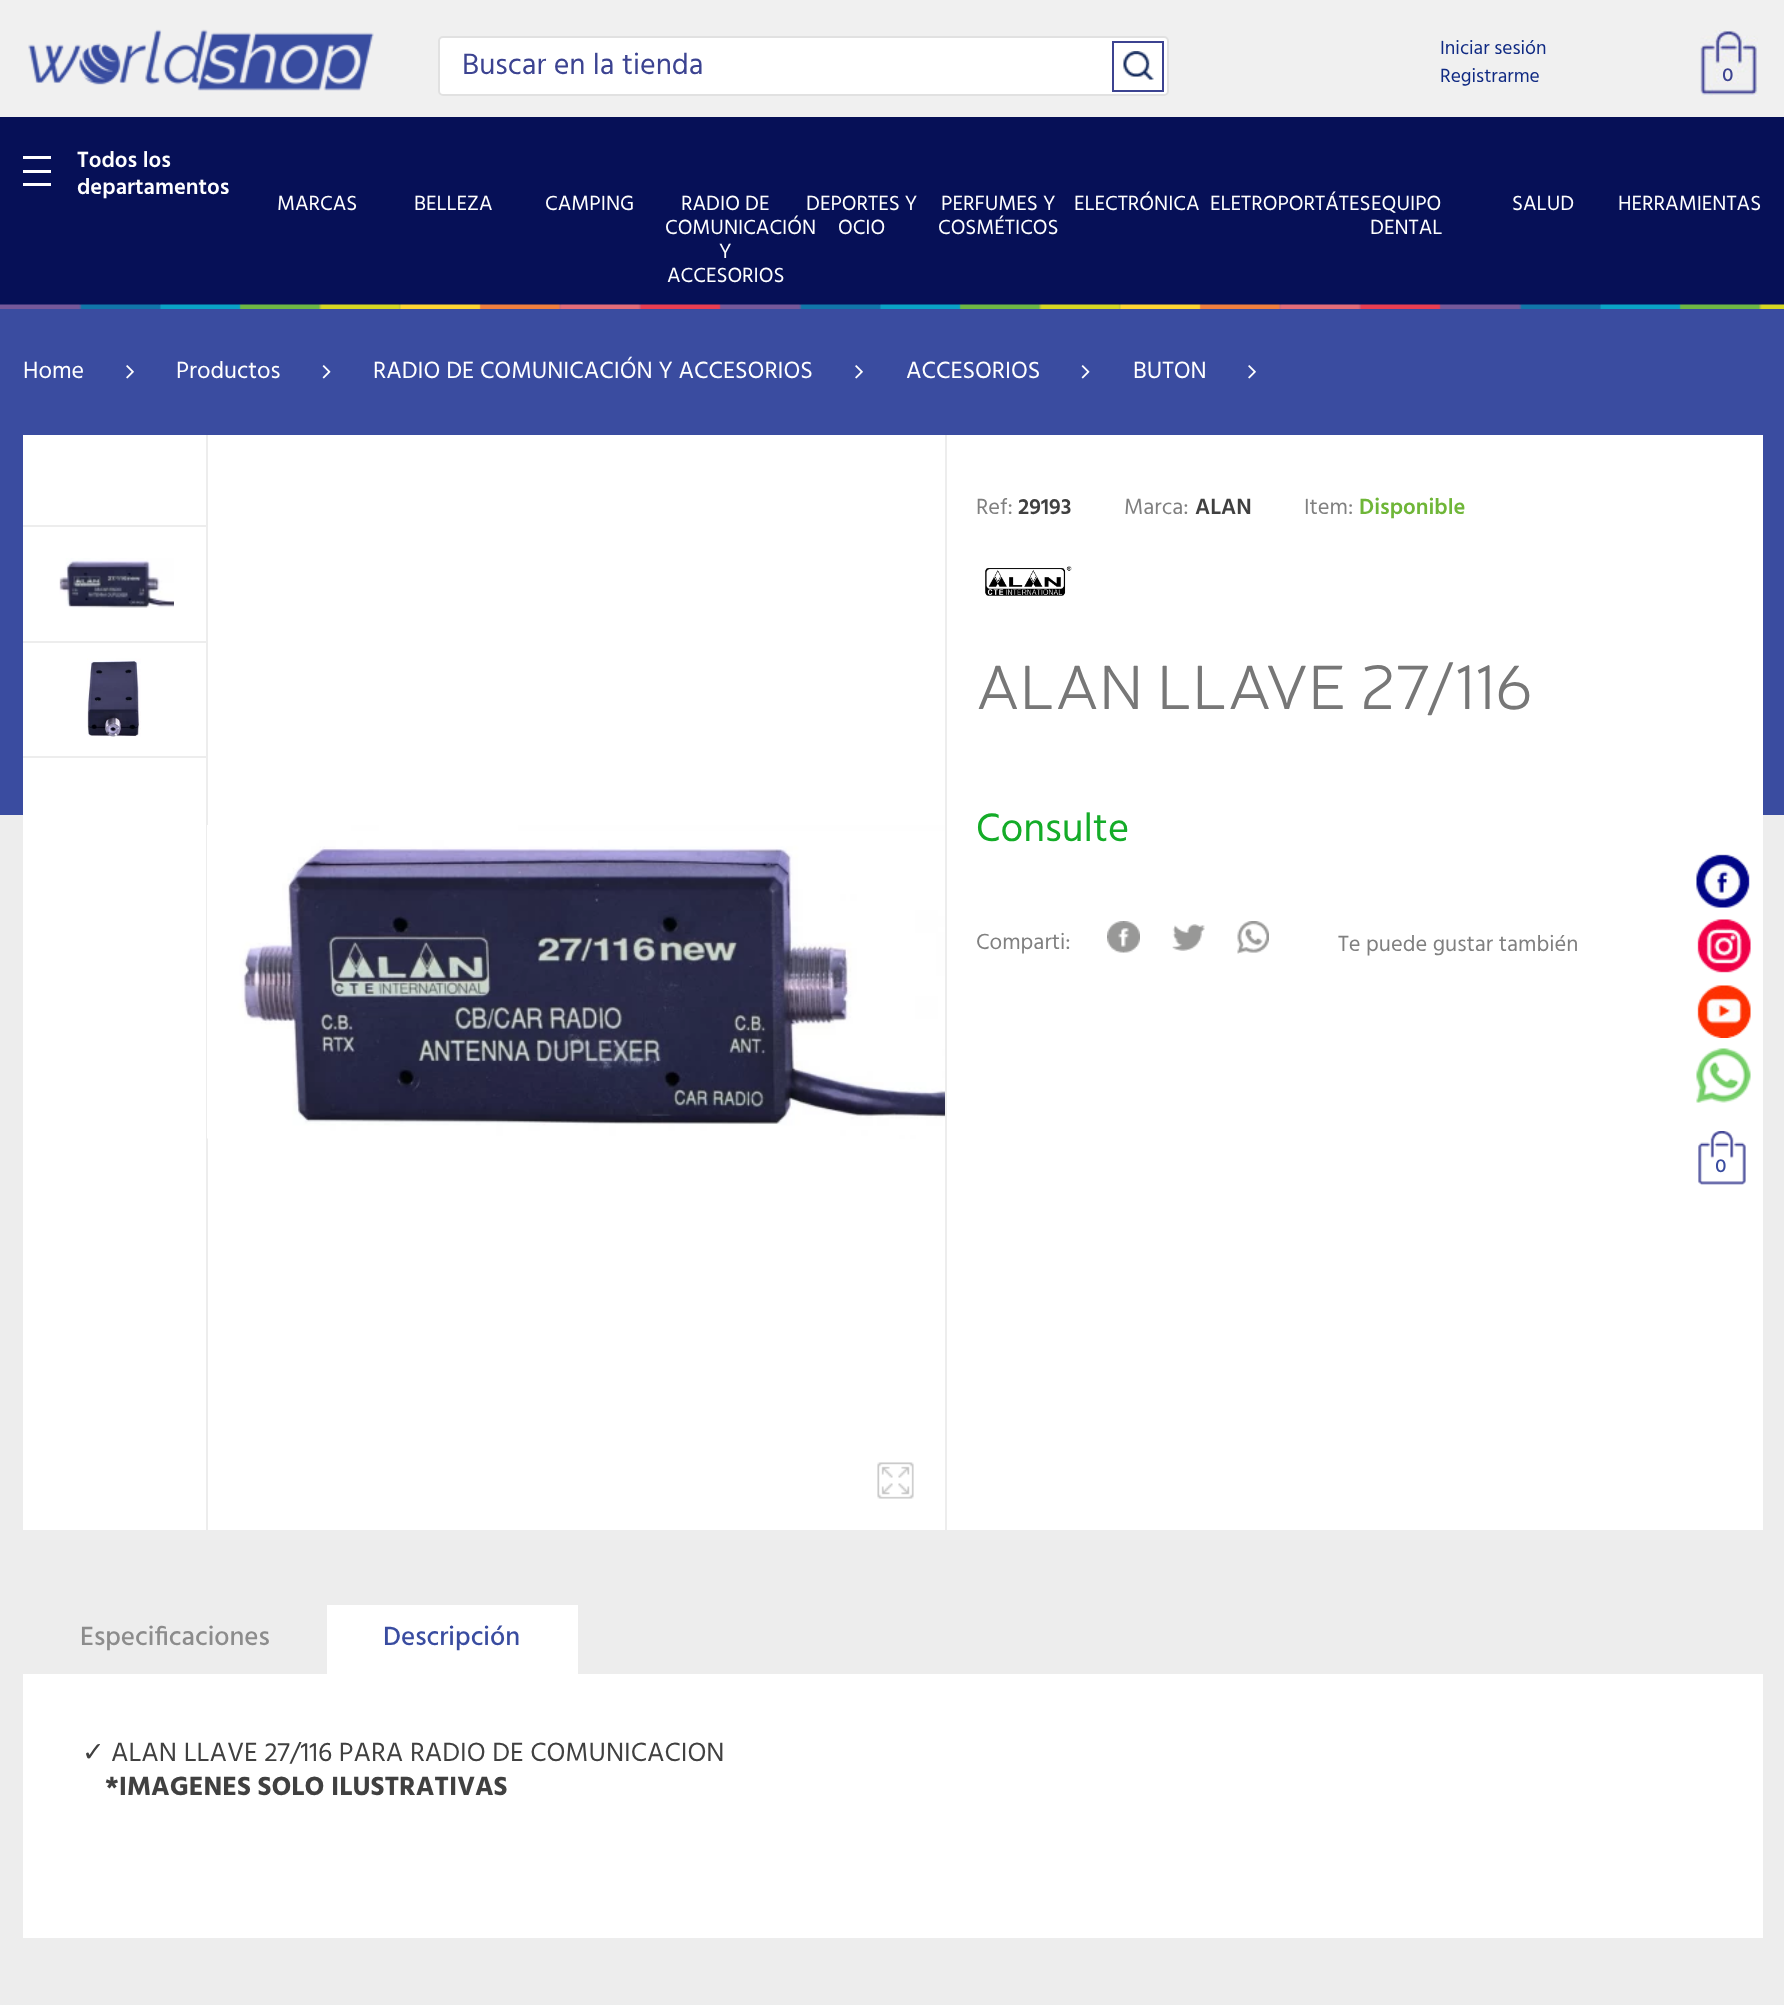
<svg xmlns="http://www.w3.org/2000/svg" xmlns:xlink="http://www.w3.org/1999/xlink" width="1784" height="2005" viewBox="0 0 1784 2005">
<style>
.cls-1{font:30px Hind;fill:#3c4391}
.cls-2{font:19.5px Hind;fill:#102a83}
.cls-3{font:600 18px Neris;fill:#3c4391}
.cls-4{font:600 22.5px Hind;fill:#ffffff}
.cls-5{font:21px Hind;fill:#ffffff}
.cls-6{font:24px Hind;fill:#ffffff}
.cls-7{font:22.5px Hind;fill:#808080}
.cls-8{font:600 22.5px Hind;fill:#404040}
.cls-9{font:600 22.5px Hind;fill:#6fb638}
.cls-10{font:300 63px Neris;fill:#777777}
.cls-11{font:40.5px Hind;fill:#14ac28}
.cls-12{font:500 27px Hind;fill:#8c8c8c}
.cls-13{font:500 27px Hind;fill:#394ca0}
.cls-14{font:27px DejaVu Sans;fill:#404040}
.cls-15{font:27px Hind;fill:#404040}
.cls-16{font:bold 27px Hind;fill:#404040}
.cls-17{font:600 18px Neris;fill:#394ca0}
</style>
<rect width="100%" height="100%" fill="#ededed"/>
<rect fill="#f0f0f0" x="0" y="0" width="1784" height="117"/>
<image xlink:href="image0.png" x="28" y="29" width="346" height="62"/>
<rect fill="#ffffff" stroke="#e1e1e1" stroke-width="2" x="439" y="37" width="729" height="58" rx="4"/>
<image xlink:href="image1.png" x="1123" y="51" width="31" height="29"/>
<rect fill="none" stroke="#3c4391" stroke-width="2" x="1113" y="42" width="50" height="49"/>
<image xlink:href="image2.png" x="1700" y="30" width="58" height="66"/>
<rect fill="#061057" x="0" y="117" width="1784" height="188"/>
<rect fill="#ffffff" x="23" y="156" width="28" height="3"/>
<rect fill="#ffffff" x="23" y="170" width="28" height="3"/>
<rect fill="#ffffff" x="23" y="183" width="28" height="3"/>
<rect fill="#3a4ca0" x="0" y="305" width="1784" height="510"/>
<image xlink:href="image3.png" x="0" y="304" width="1784" height="5"/>
<image xlink:href="image4.png" x="126" y="365" width="8" height="14"/>
<image xlink:href="image5.png" x="322" y="365" width="9" height="14"/>
<image xlink:href="image4.png" x="855" y="365" width="8" height="14"/>
<image xlink:href="image5.png" x="1081" y="365" width="9" height="14"/>
<image xlink:href="image4.png" x="1248" y="365" width="8" height="14"/>
<rect fill="#ffffff" x="23" y="435" width="922" height="1095"/>
<rect fill="#ededed" x="206" y="435" width="2" height="1095"/>
<rect fill="#ededed" x="23" y="525" width="183" height="2"/>
<rect fill="#ededed" x="23" y="641" width="183" height="2"/>
<image xlink:href="image6.png" x="59" y="558" width="115" height="50"/>
<rect fill="#ededed" x="23" y="756" width="183" height="2"/>
<image xlink:href="image7.png" x="87" y="658" width="54" height="79"/>
<image xlink:href="image8.png" x="207" y="825" width="738" height="314"/>
<image xlink:href="image9.png" x="877" y="1462" width="37" height="37"/>
<rect fill="#ffffff" x="947" y="435" width="816" height="1095"/>
<rect fill="#ededed" x="945" y="435" width="2" height="380"/>
<image xlink:href="image10.png" x="985" y="566" width="87" height="30"/>
<image xlink:href="image11.png" x="1107" y="921" width="33" height="32"/>
<image xlink:href="image12.png" x="1172" y="924" width="33" height="27"/>
<image xlink:href="image13.png" x="1237" y="921" width="32" height="33"/>
<rect fill="#ffffff" x="327" y="1605" width="251" height="69"/>
<rect fill="#ffffff" x="23" y="1674" width="1740" height="264"/>
<image xlink:href="image14.png" x="1696" y="854" width="54" height="54"/>
<image xlink:href="image15.png" x="1697" y="919" width="54" height="54"/>
<image xlink:href="image16.png" x="1697" y="985" width="54" height="53"/>
<image xlink:href="image17.png" x="1696" y="1048" width="55" height="55"/>
<image xlink:href="image18.png" x="1698" y="1131" width="48" height="54"/>
<text class="cls-1" x="462" y="74">Buscar en la tienda</text>
<text class="cls-2"><tspan x="1440" y="54">Iniciar sesión</tspan><tspan x="1440" y="82">Registrarme</tspan></text>
<text class="cls-3" x="1722" y="81">0</text>
<text class="cls-4"><tspan x="77" y="167">Todos los</tspan><tspan x="77" y="194">departamentos</tspan></text>
<text class="cls-5" x="277" y="210">MARCAS</text>
<text class="cls-5" x="414" y="210">BELLEZA</text>
<text class="cls-5" x="545" y="210">CAMPING</text>
<text class="cls-5" x="681" y="210">RADIO DE</text>
<text class="cls-5" x="665" y="234">COMUNICACIÓN</text>
<text class="cls-5" x="719" y="258">Y</text>
<text class="cls-5" x="667" y="282">ACCESORIOS</text>
<text class="cls-5" x="806" y="210">DEPORTES Y</text>
<text class="cls-5" x="838" y="234">OCIO</text>
<text class="cls-5" x="941" y="210">PERFUMES Y</text>
<text class="cls-5" x="938" y="234">COSMÉTICOS</text>
<text class="cls-5" x="1074" y="210">ELECTRÓNICA</text>
<text class="cls-5" x="1210" y="210">ELETROPORTÁTES</text>
<text class="cls-5" x="1371" y="210">EQUIPO</text>
<text class="cls-5" x="1370" y="234">DENTAL</text>
<text class="cls-5" x="1512" y="210">SALUD</text>
<text class="cls-5" x="1618" y="210">HERRAMIENTAS</text>
<text class="cls-6" x="23" y="378">Home</text>
<text class="cls-6" x="176" y="378">Productos</text>
<text class="cls-6" x="373" y="378">RADIO DE COMUNICACIÓN Y ACCESORIOS</text>
<text class="cls-6" x="906" y="378">ACCESORIOS</text>
<text class="cls-6" x="1133" y="378">BUTON</text>
<text class="cls-7" x="976" y="514">Ref:</text>
<text class="cls-8" x="1018" y="514">29193</text>
<text class="cls-7" x="1124" y="514">Marca:</text>
<text class="cls-8" x="1195" y="514">ALAN</text>
<text class="cls-7" x="1304" y="514">Item:</text>
<text class="cls-9" x="1359" y="514">Disponible</text>
<text class="cls-10" x="976" y="709">ALAN LLAVE 27/116</text>
<text class="cls-11" x="976" y="841">Consulte</text>
<text class="cls-7" x="976" y="949">Comparti:</text>
<text class="cls-7" x="1338" y="951">Te puede gustar también</text>
<text class="cls-12" x="80" y="1645">Especificaciones</text>
<text class="cls-13" x="383" y="1645">Descripción</text>
<text class="cls-14" x="82" y="1761">✓</text>
<text class="cls-15" x="111" y="1761">ALAN LLAVE 27/116 PARA RADIO DE COMUNICACION</text>
<text class="cls-16" x="105" y="1795">*IMAGENES SOLO ILUSTRATIVAS</text>
<text class="cls-17" x="1715" y="1172">0</text>
</svg>
